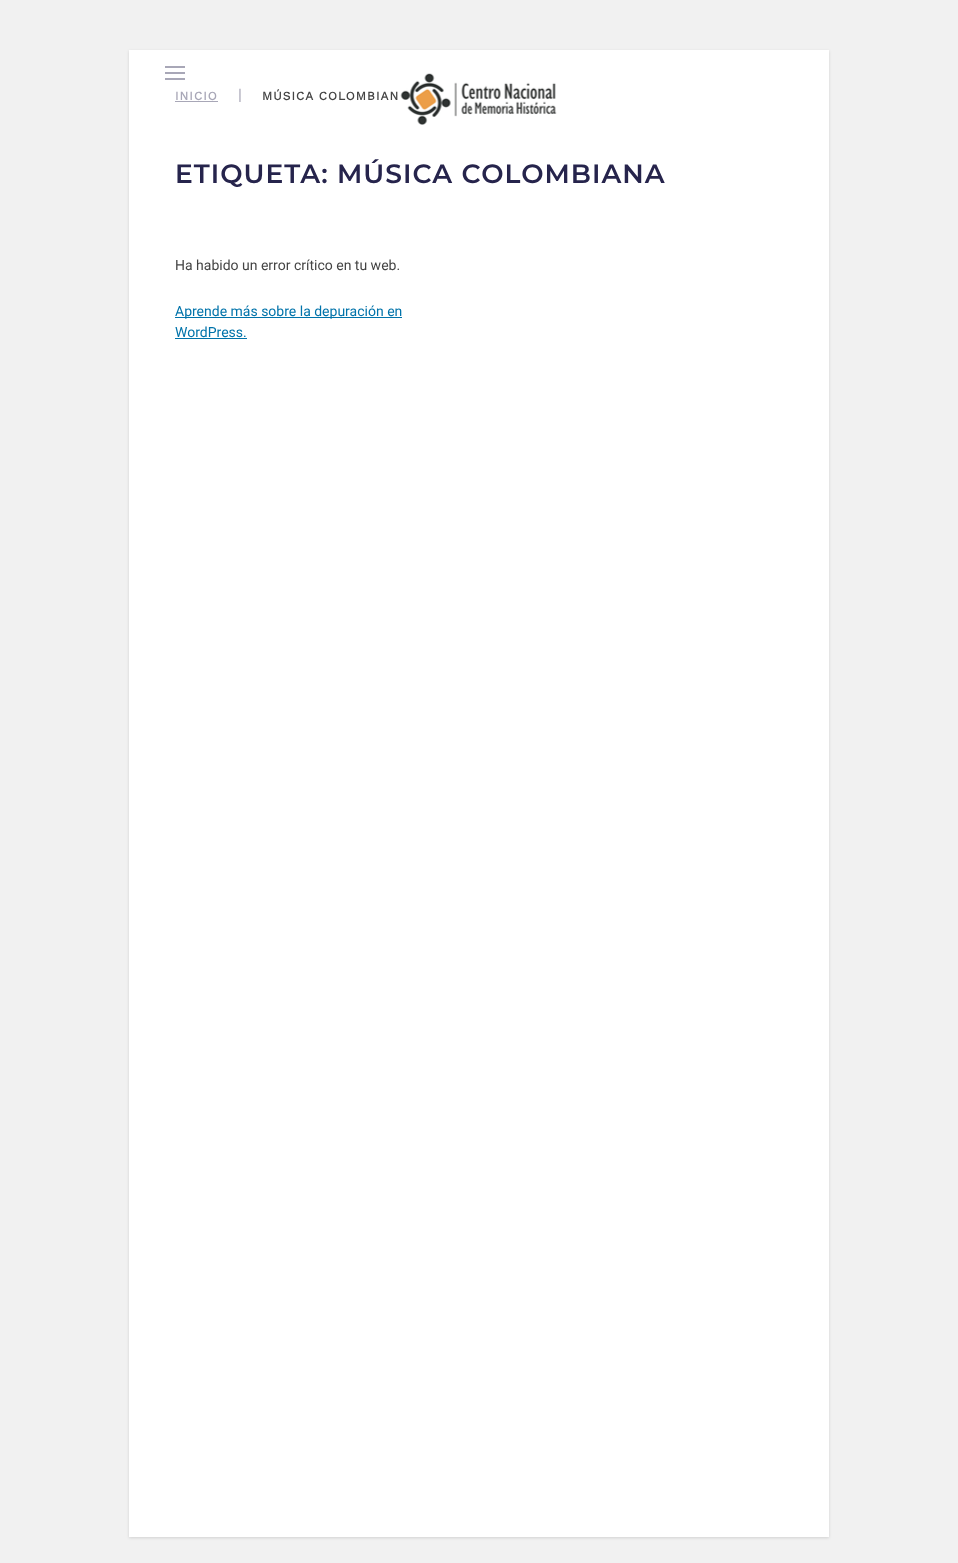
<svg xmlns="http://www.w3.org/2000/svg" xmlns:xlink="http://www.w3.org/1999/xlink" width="958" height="1563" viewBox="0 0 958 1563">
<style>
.cls-1{font:bold 12px Work Sans;letter-spacing:1px;fill:#a8a7b7}
.cls-2{font:16px Roboto;fill:#a8a7b7}
.cls-3{font:bold 12px Work Sans;letter-spacing:1px;fill:#444444}
.cls-4{font:100 26.5px Montserrat;letter-spacing:1px;fill:#26244c}
.cls-5{font:14px Roboto;fill:#444444}
.cls-6{font:14px Roboto;fill:#0073aa}
</style>
<rect width="100%" height="100%" fill="#f1f1f1"/>
<rect fill="#000000" fill-opacity="0.13" filter="blur(1.5px)" x="129" y="51" width="700" height="1487"/>
<rect fill="#ffffff" x="129" y="50" width="700" height="1487"/>
<rect fill="#a8a7b7" x="165" y="66" width="20" height="2"/>
<rect fill="#a8a7b7" x="165" y="72" width="20" height="2"/>
<rect fill="#a8a7b7" x="165" y="78" width="20" height="2"/>
<image xlink:href="image0.png" x="399" y="73" width="158" height="52"/>
<rect fill="#a8a7b7" x="175" y="101" width="43" height="1"/>
<rect fill="#0073aa" x="175" y="317" width="227" height="1"/>
<rect fill="#0073aa" x="175" y="338" width="72" height="1"/>
<text class="cls-1" x="175" y="100">INICIO</text>
<text class="cls-2" x="238" y="100">|</text>
<text class="cls-3" x="262" y="100">MÚSICA COLOMBIAN</text>
<text class="cls-4" x="175" y="183">ETIQUETA: MÚSICA COLOMBIANA</text>
<text class="cls-5" x="175" y="270">Ha habido un error crítico en tu web.</text>
<text class="cls-6"><tspan x="175" y="316">Aprende más sobre la depuración en</tspan><tspan x="175" y="337">WordPress.</tspan></text>
</svg>
